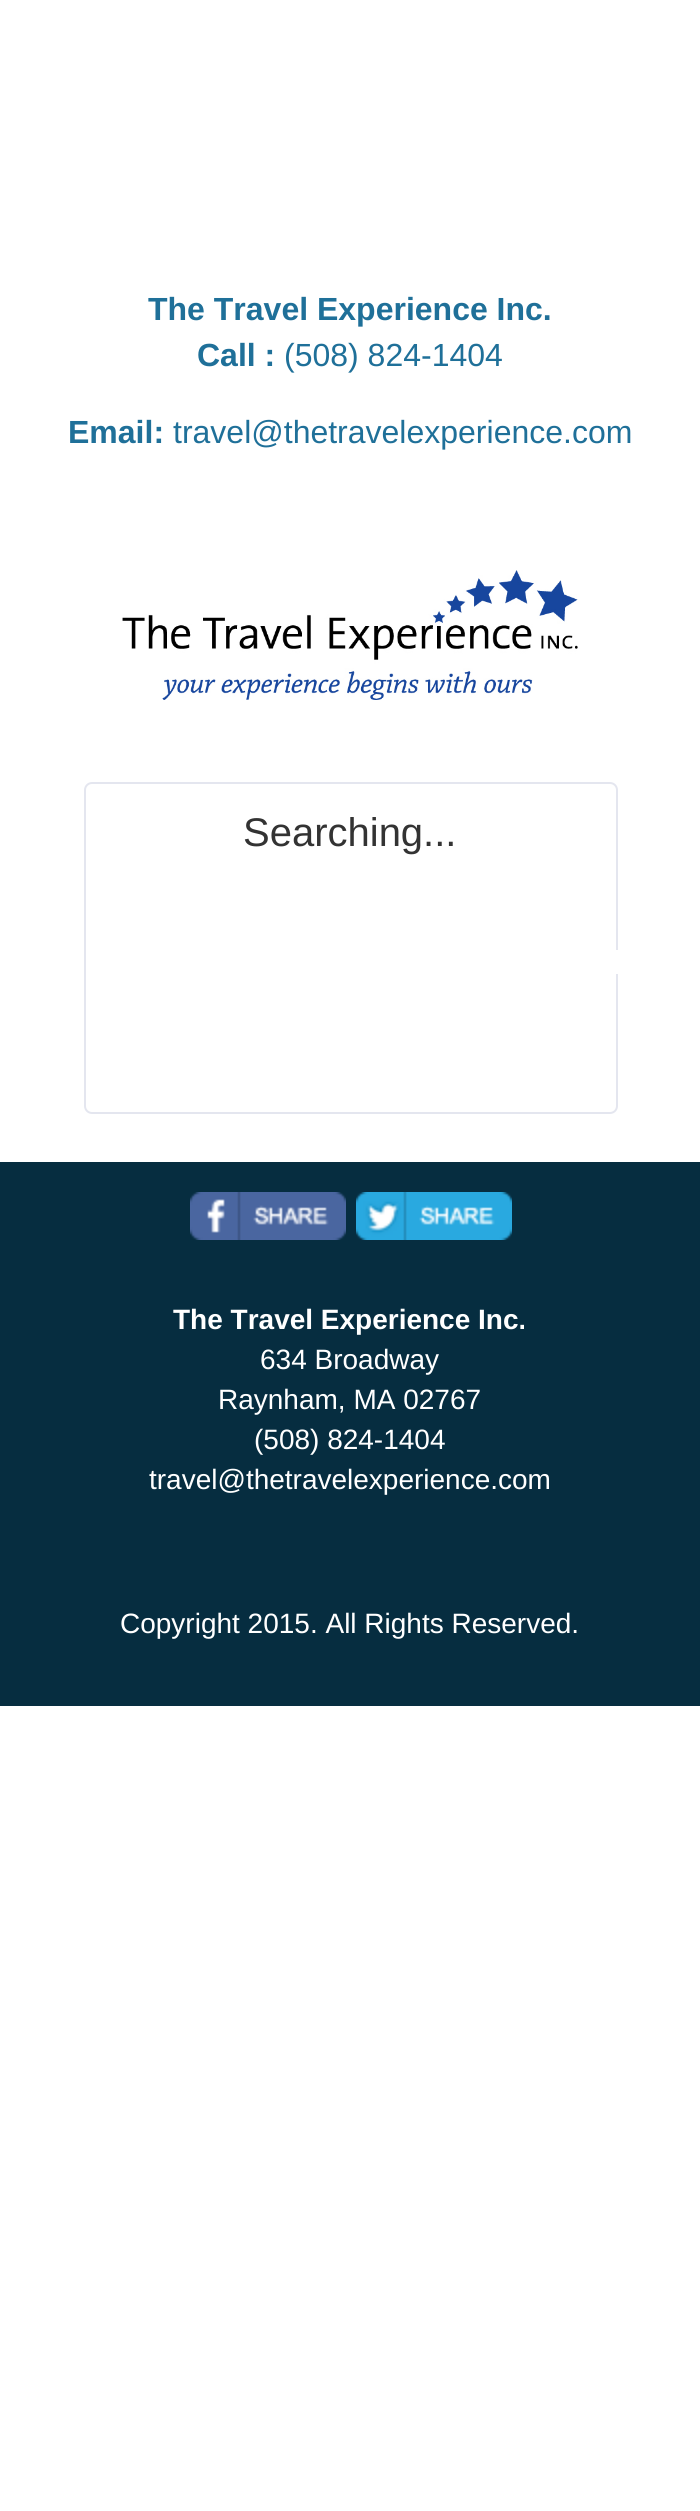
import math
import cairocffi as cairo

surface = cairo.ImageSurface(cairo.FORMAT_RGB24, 700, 2511)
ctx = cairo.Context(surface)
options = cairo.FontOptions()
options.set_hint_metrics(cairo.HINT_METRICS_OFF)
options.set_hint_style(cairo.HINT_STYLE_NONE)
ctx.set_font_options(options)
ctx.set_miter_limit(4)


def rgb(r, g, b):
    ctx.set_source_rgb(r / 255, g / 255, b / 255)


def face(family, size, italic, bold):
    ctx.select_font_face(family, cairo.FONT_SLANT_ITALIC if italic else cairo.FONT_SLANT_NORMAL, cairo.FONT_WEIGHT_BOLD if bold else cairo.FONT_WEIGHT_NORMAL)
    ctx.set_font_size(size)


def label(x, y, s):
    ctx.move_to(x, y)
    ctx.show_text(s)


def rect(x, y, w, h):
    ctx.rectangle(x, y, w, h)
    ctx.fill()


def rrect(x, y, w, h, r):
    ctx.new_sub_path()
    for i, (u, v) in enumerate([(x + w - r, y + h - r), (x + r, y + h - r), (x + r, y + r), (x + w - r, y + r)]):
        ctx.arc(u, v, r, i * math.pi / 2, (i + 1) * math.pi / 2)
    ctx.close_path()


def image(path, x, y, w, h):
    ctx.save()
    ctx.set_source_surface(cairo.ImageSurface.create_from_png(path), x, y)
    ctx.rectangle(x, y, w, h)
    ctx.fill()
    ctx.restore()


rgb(255, 255, 255)
ctx.paint()
face('Liberation Sans', 32, 0, 1)
rgb(31, 112, 153)
label(148, 320, 'The Travel Experience Inc.')
label(197, 366, 'Call :')
face('Liberation Sans', 32, 0, 0)
label(284, 366, '(508) 824-1404')
face('Liberation Sans', 32, 0, 1)
label(68, 443, 'Email:')
face('Liberation Sans', 32, 0, 0)
label(173, 443, 'travel@thetravelexperience.com')
image('image0.png', 122, 570, 456, 130)
rrect(85, 783, 532, 330, 7)
rgb(228, 230, 239)
ctx.stroke()
face('Liberation Sans', 40, 0, 0)
rgb(51, 51, 51)
label(243, 846, 'Searching...')
rgb(255, 255, 255)
rect(616, 950, 2, 24)
rgb(6, 45, 64)
rect(0, 1162, 700, 544)
image('image1.png', 190, 1192, 156, 48)
image('image2.png', 356, 1192, 156, 48)
face('Liberation Sans', 28, 0, 1)
rgb(255, 255, 255)
label(173, 1329, 'The Travel Experience Inc.')
face('Liberation Sans', 28, 0, 0)
label(260, 1369, '634 Broadway')
label(218, 1409, 'Raynham, MA 02767')
label(254, 1449, '(508) 824-1404')
label(149, 1489, 'travel@thetravelexperience.com')
label(120, 1633, 'Copyright 2015. All Rights Reserved.')
surface.write_to_png('render.png')
